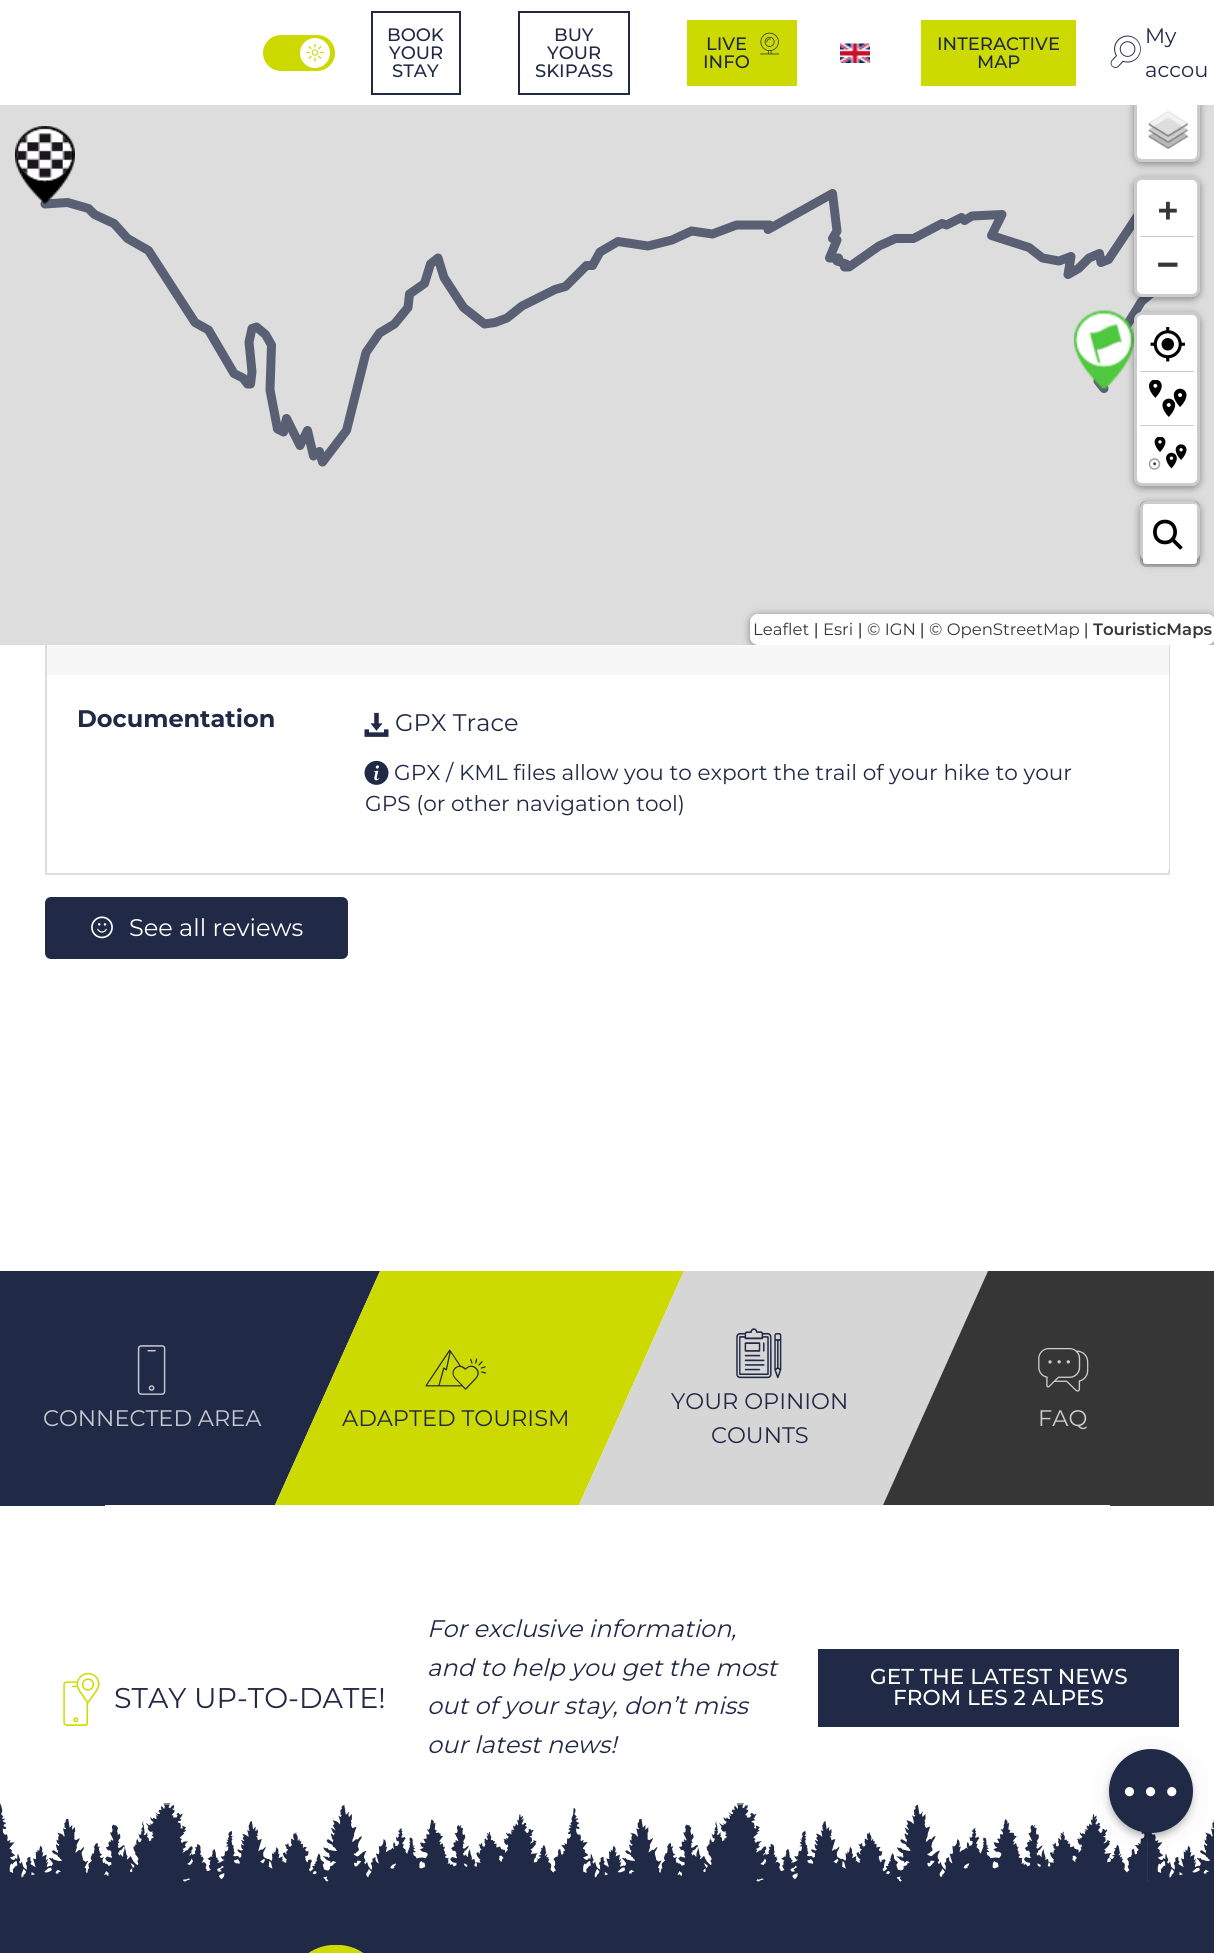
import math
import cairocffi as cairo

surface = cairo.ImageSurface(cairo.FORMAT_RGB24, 1214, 1953)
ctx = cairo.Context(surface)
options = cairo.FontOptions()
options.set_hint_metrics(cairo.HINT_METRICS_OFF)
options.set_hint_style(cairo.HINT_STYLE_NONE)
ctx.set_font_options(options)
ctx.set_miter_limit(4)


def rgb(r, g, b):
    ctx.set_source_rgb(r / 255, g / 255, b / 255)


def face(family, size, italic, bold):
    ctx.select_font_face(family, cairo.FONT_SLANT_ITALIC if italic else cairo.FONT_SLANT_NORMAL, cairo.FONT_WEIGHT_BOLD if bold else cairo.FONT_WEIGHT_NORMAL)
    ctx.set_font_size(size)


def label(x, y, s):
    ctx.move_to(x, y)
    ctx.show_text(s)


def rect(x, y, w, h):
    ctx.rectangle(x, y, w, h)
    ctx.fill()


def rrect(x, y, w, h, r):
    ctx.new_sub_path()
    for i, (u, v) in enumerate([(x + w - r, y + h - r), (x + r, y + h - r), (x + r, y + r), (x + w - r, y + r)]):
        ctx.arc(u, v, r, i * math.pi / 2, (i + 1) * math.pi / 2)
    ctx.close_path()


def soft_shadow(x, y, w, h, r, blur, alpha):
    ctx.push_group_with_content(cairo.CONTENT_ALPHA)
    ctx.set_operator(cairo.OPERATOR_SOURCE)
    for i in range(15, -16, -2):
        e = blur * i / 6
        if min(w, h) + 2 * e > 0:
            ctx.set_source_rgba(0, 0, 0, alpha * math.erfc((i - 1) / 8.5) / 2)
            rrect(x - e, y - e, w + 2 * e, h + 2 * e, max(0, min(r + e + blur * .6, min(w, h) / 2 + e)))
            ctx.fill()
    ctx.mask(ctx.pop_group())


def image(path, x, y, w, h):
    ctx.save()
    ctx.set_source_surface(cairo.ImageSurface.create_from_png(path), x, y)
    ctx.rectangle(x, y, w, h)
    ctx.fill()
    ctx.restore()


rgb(255, 255, 255)
ctx.paint()
ctx.rectangle(46, 550, 1123, 324)
rgb(221, 221, 221)
ctx.stroke()
rect(0, 105, 1214, 540)
rgb(0, 0, 0)
soft_shadow(1134, 98, 66, 66, 8, 4, 0.4)
rgb(255, 255, 255)
rrect(1134, 96, 66, 66, 8)
ctx.fill()
rrect(1135.5, 97.5, 63, 63, 6.5)
ctx.set_source_rgba(0, 0, 0, 0.2)
ctx.set_line_width(3)
ctx.stroke()
rgb(255, 255, 255)
rect(1127, 90, 80, 15)
rgb(205, 218, 1)
rrect(263, 35, 72, 36, 18)
ctx.fill()
rgb(255, 255, 255)
ctx.arc(315, 53, 15, 0, 2 * math.pi)
ctx.fill()
image('image0.png', 306, 43, 18, 19)
ctx.rectangle(372, 12, 88, 82)
rgb(32, 41, 69)
ctx.set_line_width(2)
ctx.stroke()
face('Montserrat Medium', 18, 0, 0)
label(387, 41, 'BOOK')
label(389, 59, 'YOUR')
label(392, 77, 'STAY')
ctx.rectangle(519, 12, 110, 82)
ctx.stroke()
label(554, 41, 'BUY')
label(547, 59, 'YOUR')
label(535, 77, 'SKIPASS')
rgb(205, 218, 1)
rect(687, 20, 110, 66)
rgb(32, 41, 69)
label(706, 50, 'LIVE')
label(703, 68, 'INFO')
image('image1.png', 760, 32, 20, 23)
image('image2.png', 840, 43, 30, 20)
rgb(205, 218, 1)
rect(921, 20, 155, 66)
rgb(32, 41, 69)
label(937, 50, 'INTERACTIVE')
label(977, 68, 'MAP')
image('image3.png', 1110, 35, 31, 33)
face('Montserrat', 21, 0, 0)
label(1145, 43, 'My')
label(1145, 77, 'accou')
image('image6.png', 40, 189, 1114, 278)
image('image4.png', 15, 126, 60, 78)
image('image5.png', 1074, 310, 60, 79)
image('image7.png', 1148, 111, 40, 38)
rgb(0, 0, 0)
soft_shadow(1134, 179, 66, 120, 8, 4, 0.4)
rgb(255, 255, 255)
rrect(1134, 177, 66, 120, 8)
ctx.fill()
rrect(1135.5, 178.5, 63, 117, 6.5)
ctx.set_source_rgba(0, 0, 0, 0.2)
ctx.set_line_width(3)
ctx.stroke()
rgb(204, 204, 204)
rect(1140, 236, 54, 1)
face('DejaVu Sans Mono', 33, 0, 1)
rgb(54, 54, 54)
label(1158, 221, '+')
face('DejaVu Sans Mono', 36, 0, 1)
label(1157, 276, '−')
rgb(0, 0, 0)
soft_shadow(1134, 314, 66, 174, 8, 4, 0.4)
rgb(255, 255, 255)
rrect(1134, 312, 66, 174, 8)
ctx.fill()
rrect(1135.5, 313.5, 63, 171, 6.5)
ctx.set_source_rgba(0, 0, 0, 0.2)
ctx.stroke()
image('image8.png', 1150, 327, 35, 35)
rgb(204, 204, 204)
rect(1140, 371, 54, 1)
image('image9.png', 1149, 380, 38, 37)
rect(1140, 425, 54, 1)
image('image10.png', 1149, 437, 38, 33)
rgb(0, 0, 0)
soft_shadow(1140, 503, 60, 60, 8, 4, 0.4)
rgb(255, 255, 255)
rrect(1140, 501, 60, 60, 8)
ctx.fill()
rrect(1143, 504, 54, 60, 3)
ctx.fill()
ctx.new_path()
ctx.move_to(1165, 542.5)
ctx.curve_to(1151.5, 542.5, 1151.5, 521.5, 1165, 521.5)
ctx.curve_to(1178.5, 521.5, 1178.5, 542.5, 1165, 542.5)
ctx.close_path()
ctx.move_to(1173.5, 540.5)
ctx.line_to(1181.5, 548.5)
ctx.close_path()
rgb(0, 0, 0)
ctx.set_line_width(3.7)
ctx.stroke()
rrect(1141.5, 502.5, 57, 63, 4.5)
ctx.set_source_rgba(0, 0, 0, 0.2)
ctx.set_line_width(3)
ctx.stroke()
rgb(247, 247, 247)
rect(47, 645, 1122, 30)
ctx.save()
ctx.rectangle(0, 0, 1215, 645)
ctx.clip()
rgb(0, 0, 0)
soft_shadow(750, 615, 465, 32, 8, 4, 0.4)
ctx.restore()
rgb(255, 255, 255)
rrect(750, 614, 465, 31, 8)
ctx.fill()
face('Montserrat', 16.5, 0, 0)
rgb(54, 54, 54)
label(753, 635, 'Leaflet')
face('Liberation Sans', 16.5, 0, 0)
label(814, 635, '|')
face('Montserrat', 16.5, 0, 0)
label(823, 635, 'Esri')
face('Liberation Sans', 16.5, 0, 0)
label(858, 635, '|')
face('Montserrat', 16.5, 0, 0)
label(867, 635, '© IGN')
face('Liberation Sans', 16.5, 0, 0)
label(920, 635, '|')
face('Montserrat', 16.5, 0, 0)
label(929, 635, '© OpenStreetMap')
face('Liberation Sans', 16.5, 0, 0)
label(1084, 635, '|')
face('Montserrat SemiBold', 16.5, 0, 0)
label(1093, 635, 'TouristicMaps')
rgb(255, 255, 255)
ctx.new_path()
ctx.move_to(47, 675)
ctx.line_to(1169, 675)
ctx.line_to(1169, 868)
ctx.curve_to(1169, 871, 1167, 873, 1164, 873)
ctx.line_to(52, 873)
ctx.curve_to(49, 873, 47, 871, 47, 868)
ctx.close_path()
ctx.fill()
face('Montserrat', 24, 0, 1)
rgb(32, 41, 69)
label(77, 727, 'Documentation')
image('image11.png', 364, 712, 25, 25)
face('Montserrat', 24, 0, 0)
label(395, 731, 'GPX Trace')
image('image12.png', 364, 760, 25, 25)
face('Montserrat', 21.6, 0, 0)
label(394, 780, 'GPX / KML files allow you to export the trail of your hike to your')
label(365, 811, 'GPS (or other navigation tool)')
rrect(45, 897, 303, 62, 6)
ctx.fill()
image('image13.png', 91, 916, 22, 23)
face('Montserrat', 24, 0, 0)
rgb(255, 255, 255)
label(129, 936, 'See all reviews')
rgb(32, 41, 69)
rect(0, 1805, 1214, 148)
rgb(135, 135, 135)
rect(0, 1803, 918, 2)
image('image20.png', 0, 1803, 1214, 79)
rgb(0, 0, 0)
soft_shadow(1110, 1755, 81, 81, 40.5, 4, 0.3)
rgb(32, 41, 69)
rect(818, 1649, 361, 78)
rgb(0, 0, 0)
soft_shadow(1109, 1751, 84, 84, 42, 13.5, 0.06)
rgb(32, 41, 69)
ctx.arc(1151, 1791, 41, 0, 2 * math.pi)
ctx.fill_preserve()
ctx.set_line_width(2)
ctx.stroke()
image('image14.png', 1124, 1787, 53, 10)
ctx.new_path()
ctx.move_to(76, 1271)
ctx.line_to(380, 1271)
ctx.line_to(275, 1505)
ctx.line_to(-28, 1505)
ctx.close_path()
ctx.fill()
rect(0, 1271, 105, 235)
image('image15.png', 137, 1345, 29, 50)
face('Montserrat', 22.5, 0, 0)
rgb(199, 202, 209)
label(43, 1426, 'CONNECTED AREA')
rgb(205, 218, 1)
ctx.new_path()
ctx.move_to(380, 1271)
ctx.line_to(684, 1271)
ctx.line_to(579, 1505)
ctx.line_to(275, 1505)
ctx.close_path()
ctx.fill()
image('image16.png', 425, 1349, 61, 41)
rgb(32, 41, 69)
label(342, 1426, 'ADAPTED TOURISM')
rgb(214, 214, 214)
ctx.new_path()
ctx.move_to(684, 1271)
ctx.line_to(988, 1271)
ctx.line_to(883, 1505)
ctx.line_to(579, 1505)
ctx.close_path()
ctx.fill()
image('image17.png', 736, 1328, 46, 51)
rgb(32, 41, 69)
label(671, 1409, 'YOUR OPINION')
label(711, 1443, 'COUNTS')
rgb(54, 54, 54)
ctx.new_path()
ctx.move_to(988, 1271)
ctx.line_to(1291, 1271)
ctx.line_to(1187, 1505)
ctx.line_to(883, 1505)
ctx.close_path()
ctx.fill()
image('image18.png', 1038, 1348, 51, 44)
rgb(205, 205, 205)
label(1038, 1426, 'FAQ')
rgb(54, 54, 54)
rect(1110, 1444, 104, 62)
image('image19.png', 63, 1672, 37, 54)
face('Montserrat', 28.5, 0, 0)
rgb(32, 41, 69)
label(114, 1708, 'STAY UP-TO-DATE!')
face('Montserrat', 24, 1, 0)
label(427, 1637, 'For exclusive information,')
label(427, 1676, 'and to help you get the most')
label(427, 1714, 'out of your stay, don’t miss')
label(427, 1753, 'our latest news!')
face('Montserrat Medium', 21.6, 0, 0)
rgb(255, 255, 255)
label(870, 1684, 'GET THE LATEST NEWS')
label(893, 1705, 'FROM LES 2 ALPES')
image('image21.png', 308, 1944, 55, 9)
surface.write_to_png('render.png')
